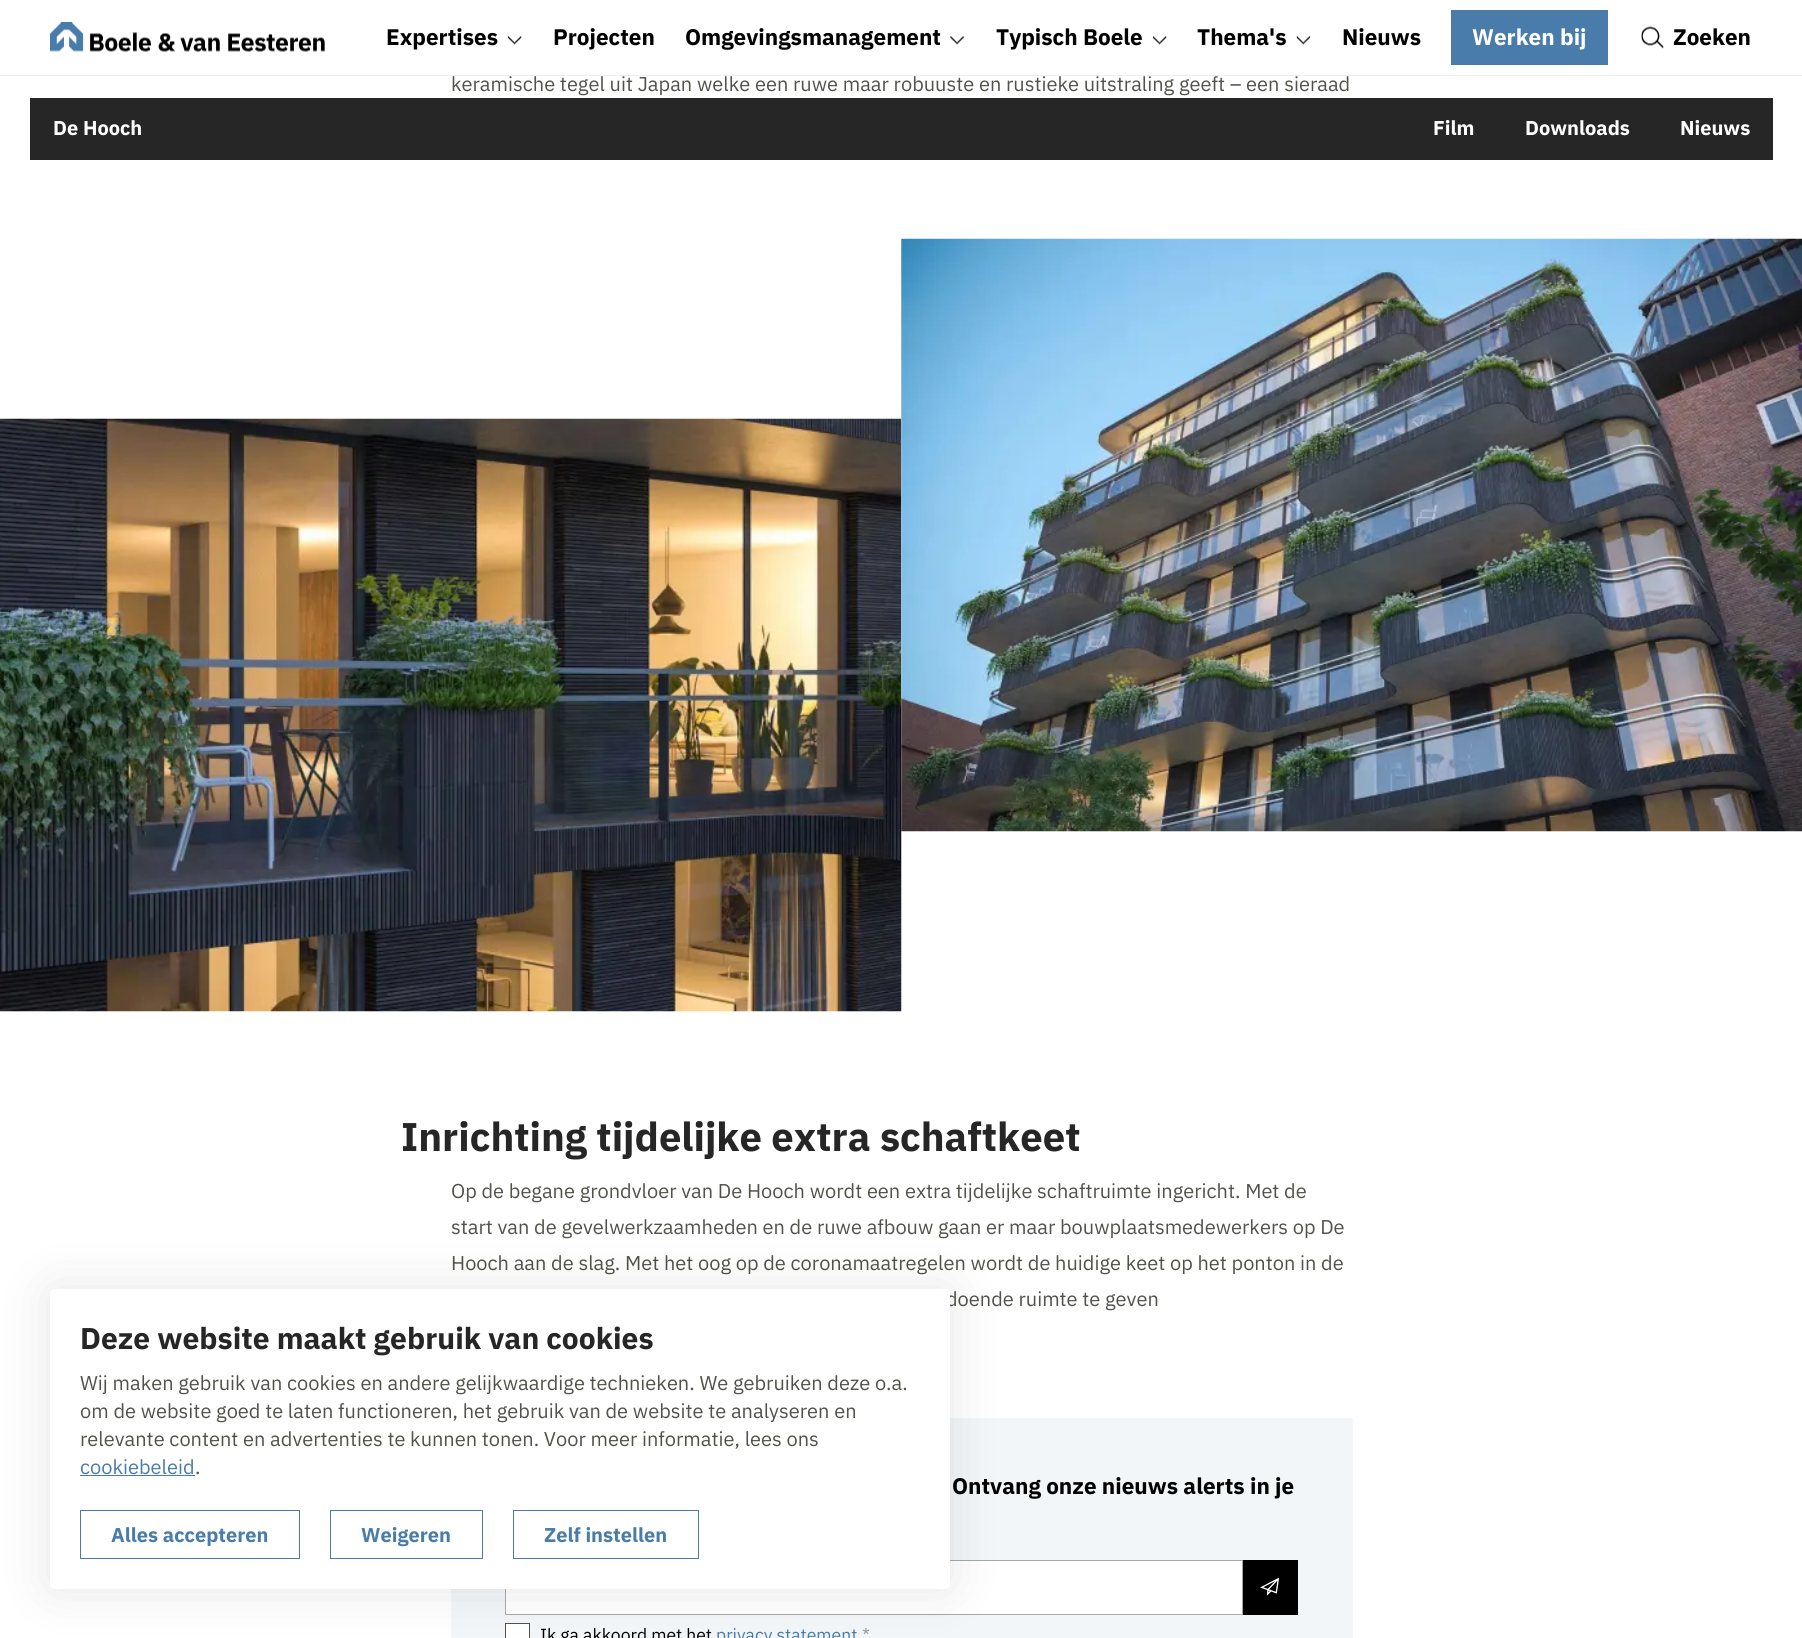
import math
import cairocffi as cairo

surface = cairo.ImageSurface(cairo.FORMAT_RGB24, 1802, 1638)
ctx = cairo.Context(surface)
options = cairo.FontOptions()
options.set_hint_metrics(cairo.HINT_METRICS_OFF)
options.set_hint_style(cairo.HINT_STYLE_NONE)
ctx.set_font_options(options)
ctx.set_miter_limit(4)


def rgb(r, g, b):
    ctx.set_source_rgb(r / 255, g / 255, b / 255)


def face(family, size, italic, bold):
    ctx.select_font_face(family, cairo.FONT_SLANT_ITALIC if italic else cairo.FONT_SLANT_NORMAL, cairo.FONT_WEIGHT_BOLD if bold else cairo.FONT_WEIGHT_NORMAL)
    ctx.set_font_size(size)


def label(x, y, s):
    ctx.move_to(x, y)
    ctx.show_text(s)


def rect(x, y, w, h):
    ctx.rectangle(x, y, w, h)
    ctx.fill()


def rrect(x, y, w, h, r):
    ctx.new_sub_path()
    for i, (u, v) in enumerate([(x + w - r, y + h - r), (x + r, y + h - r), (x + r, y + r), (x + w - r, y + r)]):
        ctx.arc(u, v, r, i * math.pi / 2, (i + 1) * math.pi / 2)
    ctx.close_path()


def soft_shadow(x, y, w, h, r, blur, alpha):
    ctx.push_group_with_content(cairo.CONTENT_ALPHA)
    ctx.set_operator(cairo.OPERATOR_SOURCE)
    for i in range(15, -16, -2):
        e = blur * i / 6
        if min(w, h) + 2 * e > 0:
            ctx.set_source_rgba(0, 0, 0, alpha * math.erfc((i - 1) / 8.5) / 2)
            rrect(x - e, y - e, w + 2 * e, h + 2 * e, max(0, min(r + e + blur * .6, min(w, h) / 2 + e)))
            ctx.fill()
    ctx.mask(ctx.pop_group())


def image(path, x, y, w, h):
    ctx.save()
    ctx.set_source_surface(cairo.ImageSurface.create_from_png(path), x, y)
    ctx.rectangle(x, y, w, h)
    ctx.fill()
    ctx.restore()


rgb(255, 255, 255)
ctx.paint()
rgb(239, 239, 239)
rect(0, 75, 1802, 1)
image('image0.png', 50, 22, 275, 30)
face('IBM Plex Sans', 22.5, 0, 1)
rgb(0, 0, 0)
label(386, 45, 'Expertises')
image('image1.png', 507, 36, 15, 9)
label(553, 45, 'Projecten')
label(685, 45, 'Omgevingsmanagement')
image('image2.png', 950, 36, 14, 9)
label(996, 45, 'Typisch Boele')
image('image1.png', 1152, 36, 15, 9)
label(1197, 45, 'Thema\'s')
image('image3.png', 1296, 36, 15, 9)
label(1342, 45, 'Nieuws')
rgb(73, 124, 171)
rect(1451, 10, 157, 55)
rgb(255, 255, 255)
label(1472, 45, 'Werken bij')
image('image4.png', 1641, 26, 23, 23)
rgb(0, 0, 0)
label(1673, 45, 'Zoeken')
face('IBM Plex Sans', 20, 0, 0)
rgb(81, 83, 74)
label(451, 91, 'keramische tegel uit Japan welke een ruwe maar robuuste en rustieke uitstraling geeft – een sieraad')
image('image5.png', 0, 418, 902, 594)
image('image6.png', 901, 238, 901, 594)
face('IBM Plex Sans', 40, 0, 1)
rgb(38, 38, 38)
label(401, 1151, 'Inrichting tijdelijke extra schaftkeet')
face('IBM Plex Sans', 20, 0, 0)
rgb(81, 83, 74)
label(451, 1198, 'Op de begane grondvloer van De Hooch wordt een extra tijdelijke schaftruimte ingericht. Met de')
label(451, 1234, 'start van de gevelwerkzaamheden en de ruwe afbouw gaan er maar bouwplaatsmedewerkers op De')
label(451, 1270, 'Hooch aan de slag. Met het oog op de coronamaatregelen wordt de huidige keet op het ponton in de')
label(946, 1306, 'doende ruimte te geven')
rgb(38, 38, 38)
rect(30, 98, 1743, 62)
face('IBM Plex Sans', 20, 0, 1)
rgb(255, 255, 255)
label(53, 135, 'De Hooch')
label(1433, 135, 'Film')
label(1525, 135, 'Downloads')
label(1680, 135, 'Nieuws')
rgb(242, 246, 249)
rect(451, 1418, 902, 220)
face('IBM Plex Sans', 22.5, 0, 1)
rgb(0, 0, 0)
label(952, 1494, 'Ontvang onze nieuws alerts in je')
rgb(255, 255, 255)
ctx.rectangle(505.5, 1560.5, 737, 54)
ctx.fill_preserve()
rgb(168, 169, 164)
ctx.set_line_width(1)
ctx.stroke()
rgb(0, 0, 0)
rect(1243, 1560, 55, 55)
image('image7.png', 1260, 1578, 20, 18)
rgb(255, 255, 255)
ctx.rectangle(505.5, 1623.5, 24, 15)
ctx.fill_preserve()
rgb(81, 83, 74)
ctx.stroke()
face('IBM Plex Sans', 17.5, 0, 0)
rgb(0, 0, 0)
label(540, 1641, 'Ik ga akkoord met het')
rgb(73, 124, 171)
label(716, 1641, 'privacy statement')
rgb(153, 153, 153)
label(862, 1641, '*')
rgb(0, 0, 0)
soft_shadow(50, 1289, 900, 300, 5, 25, 0.1)
rgb(255, 255, 255)
rrect(50, 1289, 900, 300, 5)
ctx.fill()
face('IBM Plex Sans', 30, 0, 1)
rgb(38, 38, 38)
label(80, 1349, 'Deze website maakt gebruik van cookies')
face('IBM Plex Sans', 20, 0, 0)
rgb(81, 83, 74)
label(80, 1390, 'Wij maken gebruik van cookies en andere gelijkwaardige technieken. We gebruiken deze o.a.')
label(80, 1418, 'om de website goed te laten functioneren, het gebruik van de website te analyseren en')
label(80, 1446, 'relevante content en advertenties te kunnen tonen. Voor meer informatie, lees ons')
rgb(73, 124, 171)
label(80, 1474, 'cookiebeleid')
rect(80, 1475, 115, 1)
rgb(81, 83, 74)
label(195, 1474, '.')
ctx.rectangle(80.5, 1510.5, 219, 48)
rgb(73, 124, 171)
ctx.stroke()
face('IBM Plex Sans', 20, 0, 1)
label(111, 1542, 'Alles accepteren')
ctx.rectangle(330.5, 1510.5, 152, 48)
ctx.stroke()
label(361, 1542, 'Weigeren')
ctx.rectangle(513.5, 1510.5, 185, 48)
ctx.stroke()
label(544, 1542, 'Zelf instellen')
surface.write_to_png('render.png')
